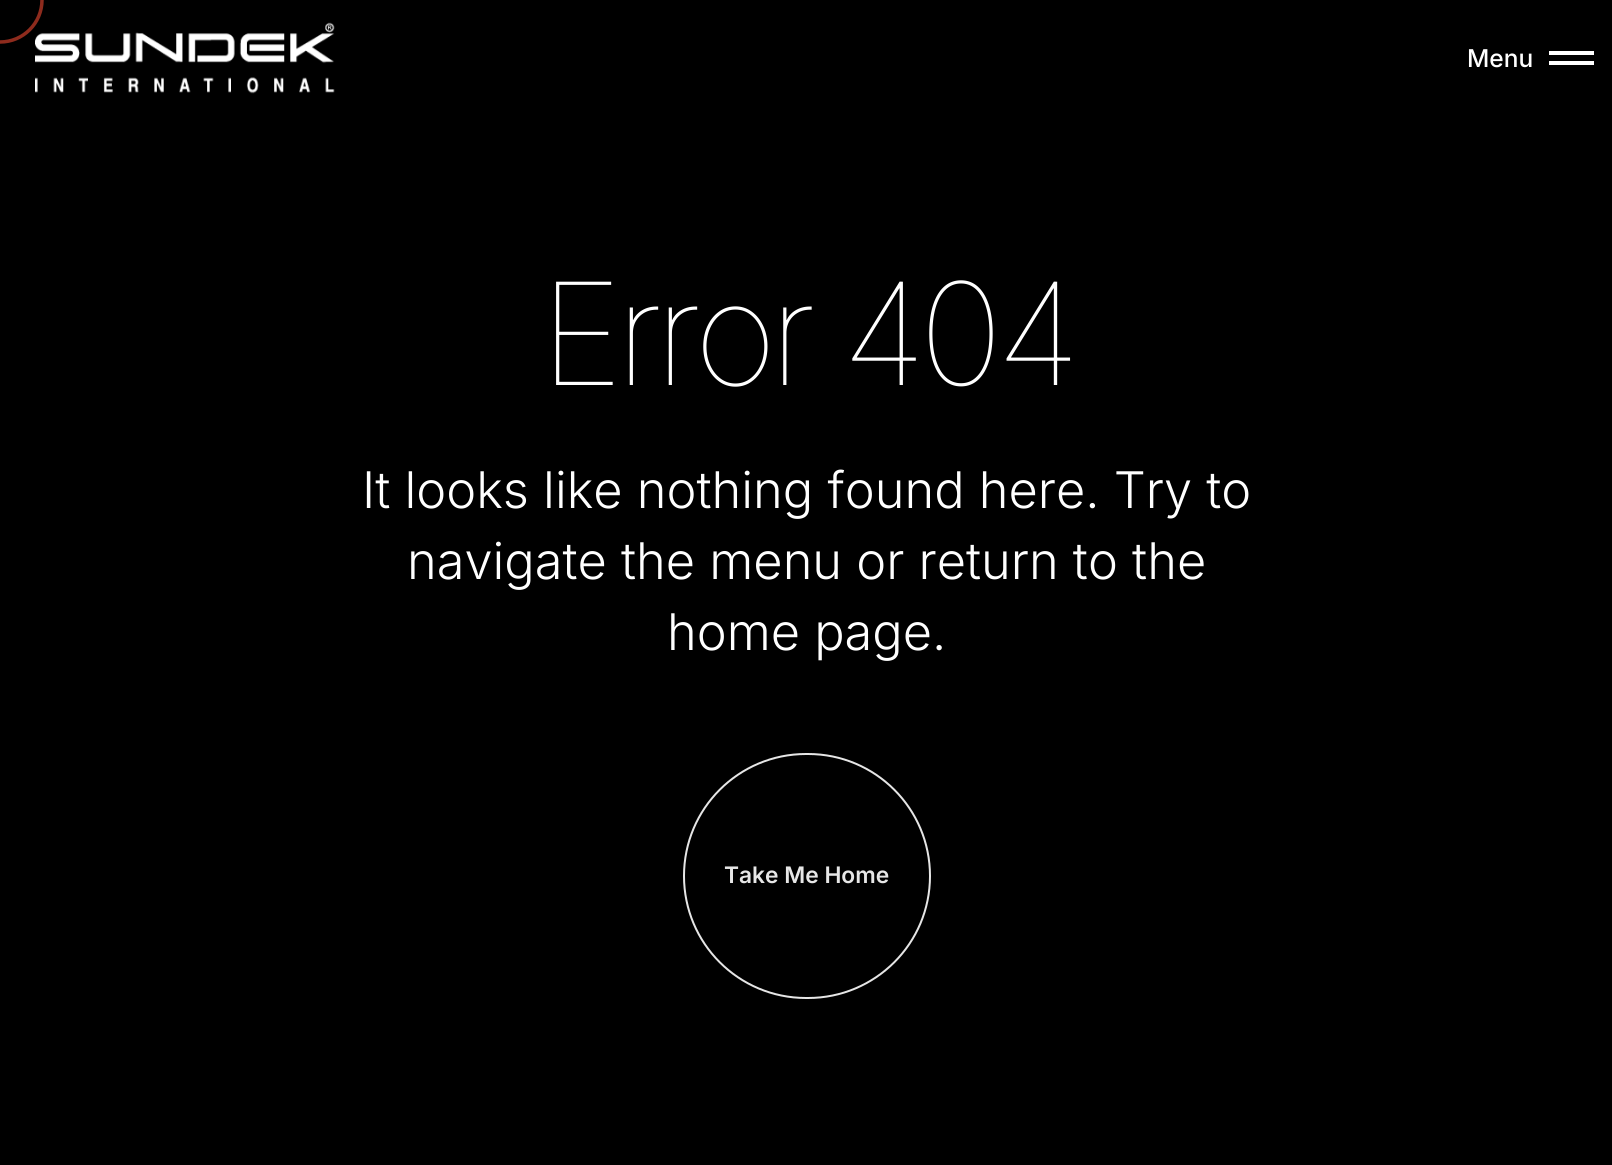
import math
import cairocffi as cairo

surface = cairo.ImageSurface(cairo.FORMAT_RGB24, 1612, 1165)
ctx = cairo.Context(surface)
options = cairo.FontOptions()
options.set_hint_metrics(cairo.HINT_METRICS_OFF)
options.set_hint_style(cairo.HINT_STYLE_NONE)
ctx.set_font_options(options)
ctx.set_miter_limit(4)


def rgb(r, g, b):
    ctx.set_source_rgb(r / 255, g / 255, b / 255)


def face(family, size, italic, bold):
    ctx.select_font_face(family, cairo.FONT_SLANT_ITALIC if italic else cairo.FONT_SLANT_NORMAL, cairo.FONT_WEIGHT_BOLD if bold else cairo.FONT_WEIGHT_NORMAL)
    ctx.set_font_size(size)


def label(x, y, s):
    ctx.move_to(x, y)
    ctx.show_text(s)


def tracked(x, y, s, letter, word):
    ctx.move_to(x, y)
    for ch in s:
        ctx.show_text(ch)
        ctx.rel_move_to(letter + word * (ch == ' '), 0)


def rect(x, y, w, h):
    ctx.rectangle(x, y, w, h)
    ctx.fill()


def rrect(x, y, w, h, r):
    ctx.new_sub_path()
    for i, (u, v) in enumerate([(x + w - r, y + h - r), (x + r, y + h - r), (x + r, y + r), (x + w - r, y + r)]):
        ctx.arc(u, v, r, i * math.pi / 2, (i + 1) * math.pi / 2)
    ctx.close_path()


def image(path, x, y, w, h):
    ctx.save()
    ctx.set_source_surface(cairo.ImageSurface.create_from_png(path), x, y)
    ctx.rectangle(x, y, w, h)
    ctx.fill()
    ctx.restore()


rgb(0, 0, 0)
ctx.paint()
image('image0.png', 35, 22, 300, 72)
ctx.arc(0, 0, 42, 0, 2 * math.pi)
rgb(142, 43, 29)
ctx.set_line_width(3.5)
ctx.stroke()
face('Inter Medium', 24.5, 0, 0)
rgb(255, 255, 255)
label(1467, 67, 'Menu')
rect(1549, 51, 45, 4)
rect(1549, 61, 45, 4)
face('Inter Thin', 142, 0, 0)
tracked(540, 385, 'Error 404', -7, 0)
face('Inter Light', 50.5, 0, 0)
label(362, 508, 'It looks like nothing found here. Try to')
label(407, 579, 'navigate the menu or return to the')
label(667, 650, 'home page.')
rrect(684, 754, 246, 244, 122)
rgb(230, 230, 230)
ctx.set_line_width(2)
ctx.stroke()
face('Inter SemiBold', 22.75, 0, 0)
label(724, 883, 'Take Me Home')
surface.write_to_png('render.png')
